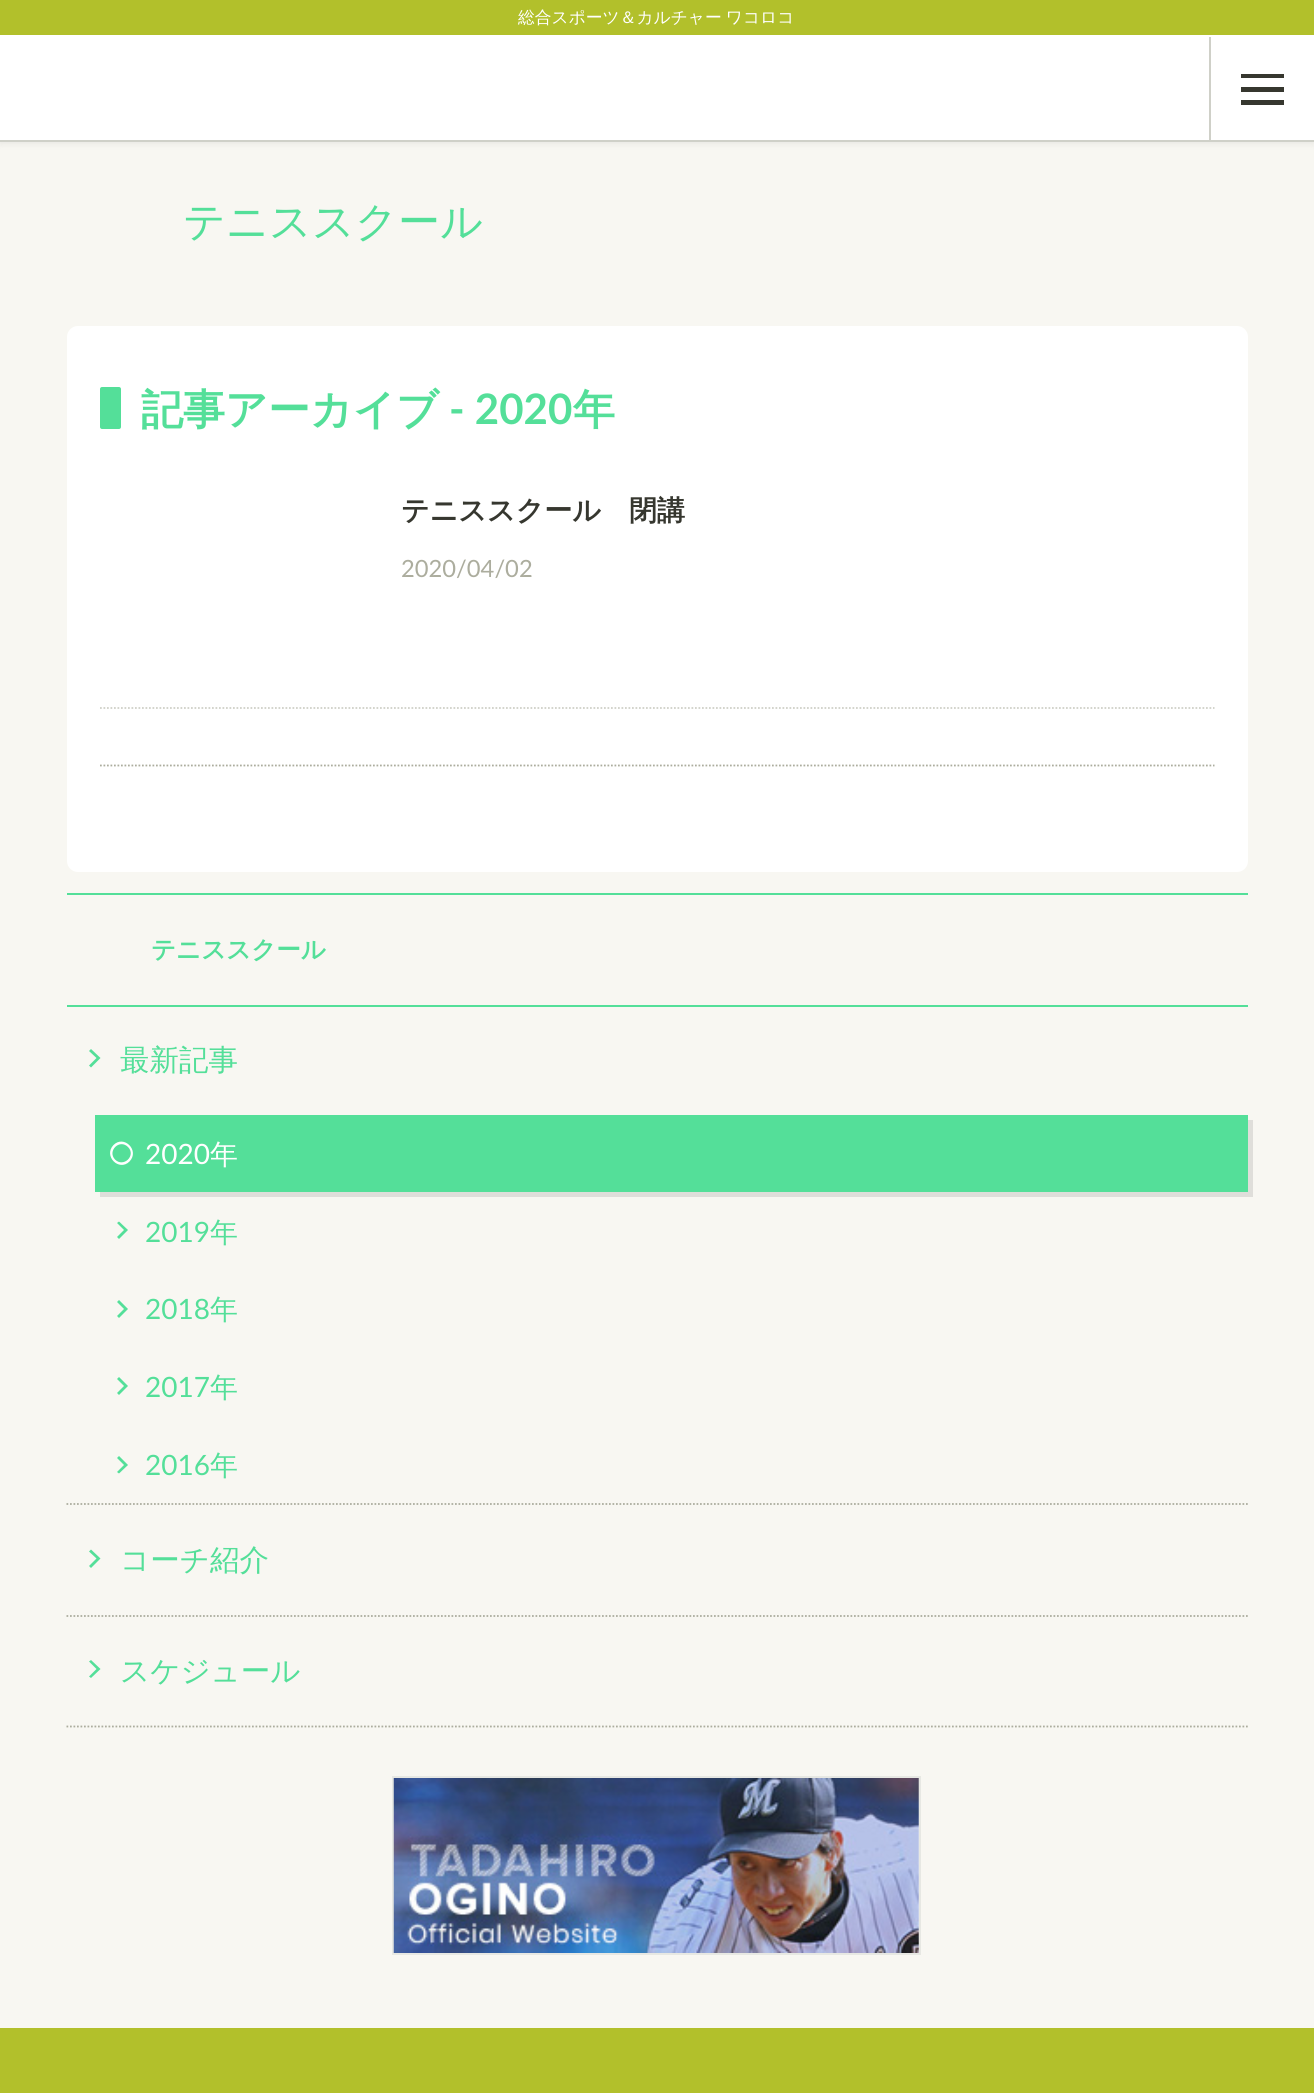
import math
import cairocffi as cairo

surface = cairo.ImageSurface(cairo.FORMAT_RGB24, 1314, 2093)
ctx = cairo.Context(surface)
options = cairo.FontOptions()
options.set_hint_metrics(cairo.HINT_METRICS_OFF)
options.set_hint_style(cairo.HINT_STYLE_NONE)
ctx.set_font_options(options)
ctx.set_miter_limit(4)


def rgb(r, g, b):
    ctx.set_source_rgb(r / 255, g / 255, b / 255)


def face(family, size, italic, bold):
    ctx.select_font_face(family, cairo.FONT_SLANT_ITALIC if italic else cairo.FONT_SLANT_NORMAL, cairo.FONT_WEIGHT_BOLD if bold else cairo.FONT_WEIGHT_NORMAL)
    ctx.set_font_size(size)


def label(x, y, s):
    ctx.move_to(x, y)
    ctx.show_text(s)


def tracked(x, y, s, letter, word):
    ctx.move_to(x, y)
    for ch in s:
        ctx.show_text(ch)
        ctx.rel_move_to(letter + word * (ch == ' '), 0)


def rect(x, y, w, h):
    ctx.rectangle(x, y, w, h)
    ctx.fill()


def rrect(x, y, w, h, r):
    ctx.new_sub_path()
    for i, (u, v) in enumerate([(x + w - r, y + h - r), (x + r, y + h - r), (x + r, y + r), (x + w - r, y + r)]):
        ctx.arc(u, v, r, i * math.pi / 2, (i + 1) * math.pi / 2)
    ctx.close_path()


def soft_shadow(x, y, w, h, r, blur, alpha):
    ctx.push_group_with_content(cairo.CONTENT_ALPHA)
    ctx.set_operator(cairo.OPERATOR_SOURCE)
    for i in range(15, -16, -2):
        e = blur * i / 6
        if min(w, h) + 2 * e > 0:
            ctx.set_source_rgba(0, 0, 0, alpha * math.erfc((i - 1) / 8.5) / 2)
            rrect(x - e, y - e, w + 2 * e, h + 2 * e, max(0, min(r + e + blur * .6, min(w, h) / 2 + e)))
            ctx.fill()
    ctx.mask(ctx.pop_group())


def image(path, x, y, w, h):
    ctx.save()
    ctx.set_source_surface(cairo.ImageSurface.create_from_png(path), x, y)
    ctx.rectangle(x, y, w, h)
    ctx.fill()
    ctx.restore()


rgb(248, 247, 242)
ctx.paint()
rgb(0, 0, 0)
soft_shadow(0, 37, 1314, 105, 0, 4.5, 0.1)
rgb(255, 255, 255)
rect(0, 35, 1314, 105)
rgb(178, 192, 43)
rect(0, 0, 1314, 35)
face('WenQuanYi Zen Hei Medium', 16.75, 0, 0)
rgb(255, 255, 255)
tracked(518, 23, '総合スポーツ＆カルチャー ワコロコ', 0, -1)
rgb(207, 208, 200)
rect(0, 140, 1314, 2)
rect(1209, 37, 2, 105)
rgb(54, 55, 47)
ctx.new_path()
ctx.move_to(1241, 92)
ctx.line_to(1241, 87)
ctx.line_to(1284, 87)
ctx.line_to(1284, 92)
ctx.close_path()
ctx.move_to(1241, 78)
ctx.line_to(1241, 74)
ctx.line_to(1284, 74)
ctx.line_to(1284, 78)
ctx.close_path()
ctx.move_to(1241, 105)
ctx.line_to(1241, 100)
ctx.line_to(1284, 100)
ctx.line_to(1284, 105)
ctx.close_path()
ctx.fill()
face('WenQuanYi Zen Hei Medium', 42, 0, 0)
rgb(84, 223, 153)
label(183, 236, 'テニススクール')
rgb(255, 255, 255)
rrect(67, 326, 1181, 546, 11)
ctx.fill()
rgb(84, 223, 153)
rrect(100, 387, 21, 42, 2)
ctx.fill()
face('WenQuanYi Zen Hei', 42, 0, 1)
label(141, 424, '記事アーカイブ')
face('Lato', 42, 0, 1)
label(449, 424, '- 2020')
face('WenQuanYi Zen Hei', 42, 0, 1)
label(573, 424, '年')
ctx.new_path()
ctx.move_to(100, 708)
ctx.line_to(1214.5, 708)
rgb(207, 208, 200)
ctx.set_line_width(1.8)
ctx.set_dash([1.75, 1.75])
ctx.stroke()
face('WenQuanYi Zen Hei', 28, 0, 1)
rgb(54, 55, 47)
label(401, 520, 'テニススクール　閉講')
face('Lato', 23.75, 0, 0)
rgb(172, 173, 158)
label(401, 577, '2020/04/02')
ctx.new_path()
ctx.move_to(100, 765.5)
ctx.line_to(1214.5, 765.5)
ctx.stroke()
rgb(84, 223, 153)
rect(67, 893, 1181, 2)
rect(67, 1005, 1181, 2)
face('WenQuanYi Zen Hei', 24.5, 0, 1)
label(151, 958, 'テニススクール')
ctx.new_path()
ctx.move_to(66.5, 1504)
ctx.line_to(1248, 1504)
rgb(172, 173, 158)
ctx.stroke()
rgb(84, 223, 153)
ctx.new_path()
ctx.move_to(89, 1051)
ctx.line_to(91, 1049)
ctx.line_to(100.5, 1058)
ctx.line_to(91, 1067.5)
ctx.line_to(89, 1065.5)
ctx.line_to(96.5, 1058)
ctx.close_path()
ctx.fill()
face('WenQuanYi Zen Hei Medium', 29.5, 0, 0)
label(120, 1070, '最新記事')
rgb(223, 222, 218)
ctx.new_path()
ctx.move_to(100, 1192)
ctx.line_to(100, 1197)
ctx.line_to(1253, 1197)
ctx.line_to(1253, 1120)
ctx.line_to(1248, 1120)
ctx.line_to(1248, 1192)
ctx.close_path()
ctx.fill()
rgb(84, 223, 153)
rect(95, 1115, 1153, 77)
rgb(255, 255, 255)
ctx.new_path()
ctx.move_to(113.5, 1145)
ctx.curve_to(124, 1134.5, 140, 1150.5, 129.5, 1161.5)
ctx.curve_to(119, 1172, 103, 1156, 113.5, 1145)
ctx.close_path()
ctx.move_to(115, 1159.5)
ctx.curve_to(123.5, 1168, 136.5, 1155.5, 128, 1147)
ctx.curve_to(119.5, 1138.5, 107, 1151, 115, 1159.5)
ctx.close_path()
ctx.fill()
face('Lato', 28, 0, 0)
label(145, 1164, '2020')
face('WenQuanYi Zen Hei Medium', 28, 0, 0)
label(210, 1164, '年')
rgb(84, 223, 153)
ctx.new_path()
ctx.move_to(117, 1223)
ctx.line_to(119, 1221.5)
ctx.line_to(128, 1230)
ctx.line_to(119, 1239)
ctx.line_to(117, 1237)
ctx.line_to(124, 1230)
ctx.close_path()
ctx.fill()
face('Lato', 28, 0, 0)
label(145, 1242, '2019')
face('WenQuanYi Zen Hei Medium', 28, 0, 0)
label(210, 1242, '年')
ctx.new_path()
ctx.move_to(117, 1302)
ctx.line_to(119, 1300)
ctx.line_to(128, 1309)
ctx.line_to(119, 1318)
ctx.line_to(117, 1316)
ctx.line_to(124, 1309)
ctx.close_path()
ctx.fill()
face('Lato', 28, 0, 0)
label(145, 1319, '2018')
face('WenQuanYi Zen Hei Medium', 28, 0, 0)
label(210, 1319, '年')
ctx.new_path()
ctx.move_to(117, 1379)
ctx.line_to(119, 1377)
ctx.line_to(128, 1386)
ctx.line_to(119, 1395)
ctx.line_to(117, 1393)
ctx.line_to(124, 1386)
ctx.close_path()
ctx.fill()
face('Lato', 28, 0, 0)
label(145, 1397, '2017')
face('WenQuanYi Zen Hei Medium', 28, 0, 0)
label(210, 1397, '年')
ctx.new_path()
ctx.move_to(117, 1458)
ctx.line_to(119, 1456)
ctx.line_to(128, 1465)
ctx.line_to(119, 1473.5)
ctx.line_to(117, 1472)
ctx.line_to(124, 1465)
ctx.close_path()
ctx.fill()
face('Lato', 28, 0, 0)
label(145, 1475, '2016')
face('WenQuanYi Zen Hei Medium', 28, 0, 0)
label(210, 1475, '年')
ctx.new_path()
ctx.move_to(66.5, 1616)
ctx.line_to(1248, 1616)
rgb(172, 173, 158)
ctx.stroke()
rgb(84, 223, 153)
ctx.new_path()
ctx.move_to(89, 1551.5)
ctx.line_to(91, 1549.5)
ctx.line_to(100.5, 1558.5)
ctx.line_to(91, 1568)
ctx.line_to(89, 1566)
ctx.line_to(96.5, 1558.5)
ctx.close_path()
ctx.fill()
face('WenQuanYi Zen Hei Medium', 29.5, 0, 0)
label(120, 1570, 'コーチ紹介')
ctx.new_path()
ctx.move_to(66.5, 1726.5)
ctx.line_to(1248, 1726.5)
rgb(172, 173, 158)
ctx.stroke()
rgb(84, 223, 153)
ctx.new_path()
ctx.move_to(89, 1661.5)
ctx.line_to(91, 1660)
ctx.line_to(100.5, 1669)
ctx.line_to(91, 1678)
ctx.line_to(89, 1676.5)
ctx.line_to(96.5, 1669)
ctx.close_path()
ctx.fill()
label(120, 1681, 'スケジュール')
ctx.rectangle(393, 1777, 527, 177)
rgb(231, 232, 227)
ctx.set_line_width(2)
ctx.set_dash([])
ctx.stroke()
image('image0.png', 393, 1778, 526, 175)
rgb(178, 192, 43)
rect(0, 2028, 1314, 65)
surface.write_to_png('render.png')
